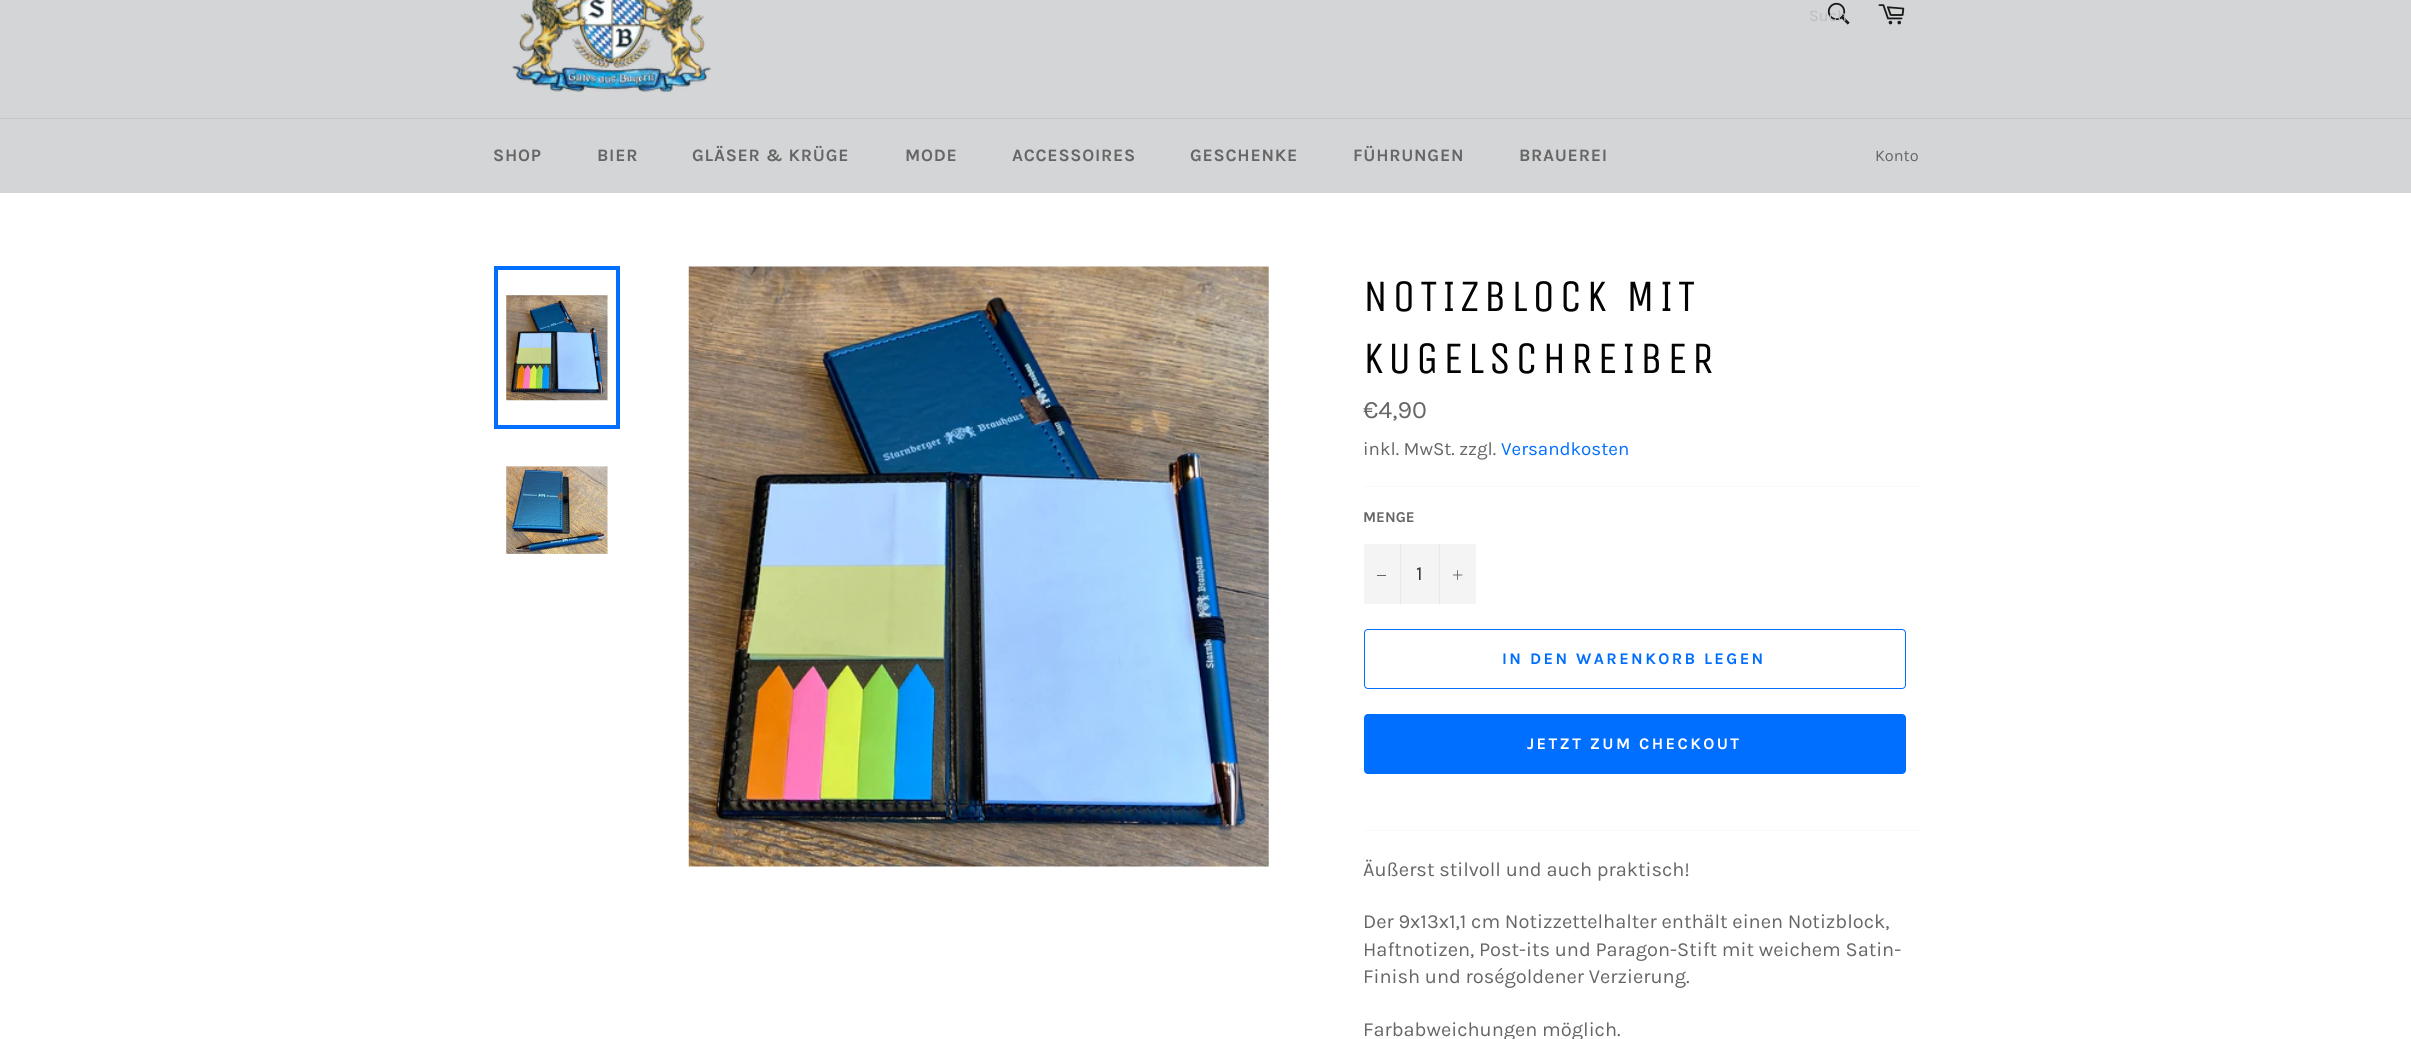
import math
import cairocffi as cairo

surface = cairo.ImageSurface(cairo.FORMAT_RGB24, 2411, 1039)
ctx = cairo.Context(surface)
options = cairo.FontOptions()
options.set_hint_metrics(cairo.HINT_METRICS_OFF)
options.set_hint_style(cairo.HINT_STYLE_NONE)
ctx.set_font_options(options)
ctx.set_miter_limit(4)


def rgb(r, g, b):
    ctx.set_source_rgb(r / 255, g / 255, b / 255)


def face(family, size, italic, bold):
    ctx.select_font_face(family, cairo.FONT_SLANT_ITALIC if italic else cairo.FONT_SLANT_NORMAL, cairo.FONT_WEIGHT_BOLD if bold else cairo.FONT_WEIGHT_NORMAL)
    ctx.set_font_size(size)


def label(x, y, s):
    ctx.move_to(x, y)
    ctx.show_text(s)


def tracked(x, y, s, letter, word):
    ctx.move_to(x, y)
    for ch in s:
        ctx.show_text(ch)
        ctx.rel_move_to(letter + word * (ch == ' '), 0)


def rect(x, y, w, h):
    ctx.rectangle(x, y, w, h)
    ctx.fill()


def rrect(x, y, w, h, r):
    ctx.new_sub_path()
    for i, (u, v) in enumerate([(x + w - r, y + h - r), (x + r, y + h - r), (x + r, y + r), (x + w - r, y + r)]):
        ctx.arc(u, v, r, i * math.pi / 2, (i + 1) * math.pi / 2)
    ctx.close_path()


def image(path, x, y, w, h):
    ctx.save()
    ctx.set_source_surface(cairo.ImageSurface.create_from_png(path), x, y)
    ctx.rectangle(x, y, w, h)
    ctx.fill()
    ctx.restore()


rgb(212, 213, 215)
ctx.paint()
image('image0.png', 512, 0, 200, 92)
image('image1.png', 1827, 2, 23, 23)
face('Karla', 16.25, 0, 0)
rgb(189, 189, 191)
label(1809, 21, 'Such')
image('image2.png', 1878, 4, 27, 21)
rgb(199, 200, 203)
rect(0, 118, 2411, 1)
face('Karla', 17.5, 0, 1)
rgb(102, 102, 102)
tracked(493, 161, 'SHOP', 0.75, 0)
tracked(597, 161, 'BIER', 0.75, 0)
tracked(692, 161, 'GLÄSER & KRÜGE', 0.75, 0)
tracked(905, 161, 'MODE', 0.75, 0)
tracked(1012, 161, 'ACCESSOIRES', 0.75, 0)
tracked(1190, 161, 'GESCHENKE', 0.75, 0)
tracked(1353, 161, 'FÜHRUNGEN', 0.75, 0)
tracked(1519, 161, 'BRAUEREI', 0.75, 0)
face('Karla', 16.25, 0, 0)
label(1875, 161, 'Konto')
rgb(255, 255, 255)
rect(0, 193, 2411, 846)
image('image3.png', 506, 295, 102, 106)
ctx.rectangle(496, 268, 122, 159)
rgb(0, 110, 255)
ctx.set_line_width(4)
ctx.stroke()
image('image4.png', 506, 466, 102, 88)
image('image5.png', 688, 266, 581, 601)
face('Unica One', 45, 0, 0)
rgb(3, 3, 3)
tracked(1363, 311, 'NOTIZBLOCK MIT', 4.5, 0)
tracked(1363, 373, 'KUGELSCHREIBER', 4.5, 0)
face('Karla', 25, 0, 0)
rgb(102, 102, 102)
label(1363, 418, '€4,90')
face('Karla', 18.75, 0, 0)
label(1363, 455, 'inkl. MwSt. zzgl.')
rgb(0, 110, 255)
label(1501, 455, 'Versandkosten')
rgb(249, 249, 249)
rect(1364, 486, 555, 1)
face('Karla', 15, 0, 1)
rgb(102, 102, 102)
label(1363, 522, 'MENGE')
rgb(244, 244, 244)
rect(1364, 544, 112, 60)
rgb(231, 231, 231)
rect(1400, 544, 1, 60)
rgb(102, 102, 102)
rect(1377, 575, 9, 1)
face('Karla', 20, 0, 0)
rgb(51, 51, 51)
label(1416, 580, '1')
rgb(231, 231, 231)
rect(1439, 544, 1, 60)
image('image6.png', 1453, 570, 10, 10)
rrect(1364.5, 629.5, 541, 59, 3.5)
rgb(0, 110, 255)
ctx.set_line_width(1)
ctx.stroke()
face('Karla', 16.25, 0, 1)
tracked(1502, 664, 'IN DEN WARENKORB LEGEN', 2.4, 0)
rrect(1364, 714, 542, 60, 4)
ctx.fill()
rgb(255, 255, 255)
tracked(1527, 749, 'JETZT ZUM CHECKOUT', 2.4, 0)
rgb(249, 249, 249)
rect(1364, 830, 555, 1)
face('Karla', 20, 0, 0)
rgb(102, 102, 102)
label(1363, 876, 'Äußerst stilvoll und auch praktisch!')
label(1363, 928, 'Der 9x13x1,1 cm Notizzettelhalter enthält einen Notizblock,')
label(1363, 956, 'Haftnotizen, Post-its und Paragon-Stift mit weichem Satin-')
label(1363, 983, 'Finish und roségoldener Verzierung.')
label(1363, 1036, 'Farbabweichungen möglich.')
surface.write_to_png('render.png')
